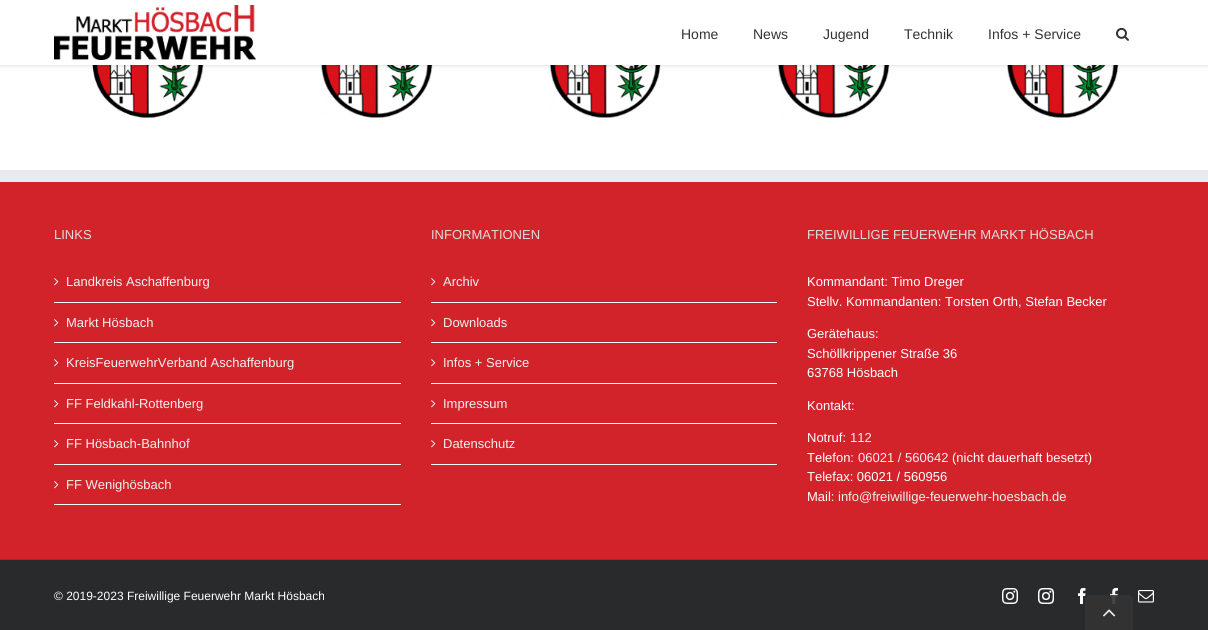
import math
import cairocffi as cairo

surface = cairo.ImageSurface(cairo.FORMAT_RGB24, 1208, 630)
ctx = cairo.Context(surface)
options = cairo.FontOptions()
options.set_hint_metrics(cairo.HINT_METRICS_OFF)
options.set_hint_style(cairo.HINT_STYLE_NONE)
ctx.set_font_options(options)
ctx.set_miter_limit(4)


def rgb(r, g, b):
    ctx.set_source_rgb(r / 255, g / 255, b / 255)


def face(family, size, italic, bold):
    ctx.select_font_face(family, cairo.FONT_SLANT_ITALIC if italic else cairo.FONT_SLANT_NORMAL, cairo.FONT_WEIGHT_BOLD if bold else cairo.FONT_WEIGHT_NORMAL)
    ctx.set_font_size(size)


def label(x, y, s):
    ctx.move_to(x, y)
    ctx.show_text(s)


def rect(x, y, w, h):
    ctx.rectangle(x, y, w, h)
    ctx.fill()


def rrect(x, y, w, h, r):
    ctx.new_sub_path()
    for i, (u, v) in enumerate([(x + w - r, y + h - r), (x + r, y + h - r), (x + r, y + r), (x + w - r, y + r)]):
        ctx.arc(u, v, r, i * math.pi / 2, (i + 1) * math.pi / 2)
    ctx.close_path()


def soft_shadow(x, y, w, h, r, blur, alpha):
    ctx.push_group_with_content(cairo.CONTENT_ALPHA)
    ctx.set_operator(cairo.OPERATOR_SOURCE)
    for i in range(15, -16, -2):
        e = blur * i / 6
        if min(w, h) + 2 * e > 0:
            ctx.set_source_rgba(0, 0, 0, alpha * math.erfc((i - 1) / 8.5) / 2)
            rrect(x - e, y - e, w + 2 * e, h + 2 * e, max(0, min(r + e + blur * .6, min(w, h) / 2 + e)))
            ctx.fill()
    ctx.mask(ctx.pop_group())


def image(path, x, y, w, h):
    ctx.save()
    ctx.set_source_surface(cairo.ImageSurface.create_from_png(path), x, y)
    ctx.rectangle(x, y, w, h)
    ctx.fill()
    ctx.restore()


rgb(255, 255, 255)
ctx.paint()
image('image2.png', 92, 65, 112, 53)
image('image3.png', 321, 65, 112, 53)
image('image4.png', 549, 65, 112, 53)
image('image5.png', 778, 65, 112, 53)
image('image6.png', 1007, 65, 112, 53)
rgb(0, 0, 0)
soft_shadow(0, 1, 1208, 65, 0, 1.5, 0.12)
rgb(255, 255, 255)
rect(0, 0, 1208, 65)
image('image0.png', 54, 5, 202, 55)
face('Liberation Sans', 14, 0, 0)
rgb(51, 51, 51)
label(681, 39, 'Home')
label(753, 39, 'News')
label(823, 39, 'Jugend')
label(904, 39, 'Technik')
label(988, 39, 'Infos + Service')
image('image1.png', 1116, 27, 13, 14)
rgb(210, 35, 42)
rect(0, 182, 1208, 377)
rgb(233, 234, 238)
rect(0, 170, 1208, 12)
face('Liberation Sans', 13, 0, 0)
rgb(221, 221, 221)
label(54, 239, 'LINKS')
rgb(255, 255, 255)
rect(54, 302, 347, 1)
image('image7.png', 54, 278, 5, 8)
rgb(240, 240, 240)
label(66, 286, 'Landkreis Aschaffenburg')
rgb(255, 255, 255)
rect(54, 342, 347, 1)
image('image7.png', 54, 319, 5, 8)
rgb(240, 240, 240)
label(66, 327, 'Markt Hösbach')
rgb(255, 255, 255)
rect(54, 383, 347, 1)
image('image7.png', 54, 359, 5, 8)
rgb(240, 240, 240)
label(66, 367, 'KreisFeuerwehrVerband Aschaffenburg')
rgb(255, 255, 255)
rect(54, 423, 347, 1)
image('image7.png', 54, 400, 5, 8)
rgb(240, 240, 240)
label(66, 408, 'FF Feldkahl-Rottenberg')
rgb(255, 255, 255)
rect(54, 464, 347, 1)
image('image7.png', 54, 440, 5, 8)
rgb(240, 240, 240)
label(66, 448, 'FF Hösbach-Bahnhof')
rgb(255, 255, 255)
rect(54, 504, 347, 1)
image('image7.png', 54, 481, 5, 8)
rgb(240, 240, 240)
label(66, 489, 'FF Wenighösbach')
rgb(221, 221, 221)
label(431, 239, 'INFORMATIONEN')
rgb(255, 255, 255)
rect(431, 302, 346, 1)
image('image7.png', 431, 278, 5, 8)
rgb(240, 240, 240)
label(443, 286, 'Archiv')
rgb(255, 255, 255)
rect(431, 342, 346, 1)
image('image7.png', 431, 319, 5, 8)
rgb(240, 240, 240)
label(443, 327, 'Downloads')
rgb(255, 255, 255)
rect(431, 383, 346, 1)
image('image7.png', 431, 359, 5, 8)
rgb(240, 240, 240)
label(443, 367, 'Infos + Service')
rgb(255, 255, 255)
rect(431, 423, 346, 1)
image('image7.png', 431, 400, 5, 8)
rgb(240, 240, 240)
label(443, 408, 'Impressum')
rgb(255, 255, 255)
rect(431, 464, 346, 1)
image('image7.png', 431, 440, 5, 8)
rgb(240, 240, 240)
label(443, 448, 'Datenschutz')
rgb(221, 221, 221)
label(807, 239, 'FREIWILLIGE FEUERWEHR MARKT HÖSBACH')
rgb(255, 255, 255)
label(807, 286, 'Kommandant: Timo Dreger')
label(807, 306, 'Stellv. Kommandanten: Torsten Orth, Stefan Becker')
label(807, 338, 'Gerätehaus:')
label(807, 358, 'Schöllkrippener Straße 36')
label(807, 377, '63768 Hösbach')
label(807, 410, 'Kontakt:')
label(807, 442, 'Notruf:')
rgb(240, 240, 240)
label(850, 442, '112')
rgb(255, 255, 255)
label(807, 462, 'Telefon:')
rgb(240, 240, 240)
label(858, 462, '06021 / 560642')
rgb(255, 255, 255)
label(952, 462, '(nicht dauerhaft besetzt)')
label(807, 481, 'Telefax: 06021 / 560956')
label(807, 501, 'Mail:')
rgb(240, 240, 240)
label(838, 501, 'info@freiwillige-feuerwehr-hoesbach.de')
rgb(40, 42, 43)
rect(0, 560, 1208, 70)
rgb(75, 76, 77)
rect(0, 559, 1208, 1)
face('Liberation Sans', 12, 0, 0)
rgb(255, 255, 255)
label(54, 600, '© 2019-2023 Freiwillige Feuerwehr Markt Hösbach')
image('image8.png', 1002, 588, 16, 16)
image('image9.png', 1038, 588, 16, 16)
image('image10.png', 1078, 588, 8, 16)
image('image11.png', 1110, 588, 8, 16)
image('image12.png', 1138, 590, 16, 13)
ctx.set_source_rgba(0.2, 0.2, 0.2, 0.9)
ctx.new_path()
ctx.move_to(1089, 595)
ctx.line_to(1129, 595)
ctx.curve_to(1131, 595, 1133, 597, 1133, 599)
ctx.line_to(1133, 630)
ctx.line_to(1085, 630)
ctx.line_to(1085, 599)
ctx.curve_to(1085, 597, 1087, 595, 1089, 595)
ctx.close_path()
ctx.fill()
image('image13.png', 1103, 609, 13, 8)
surface.write_to_png('render.png')
